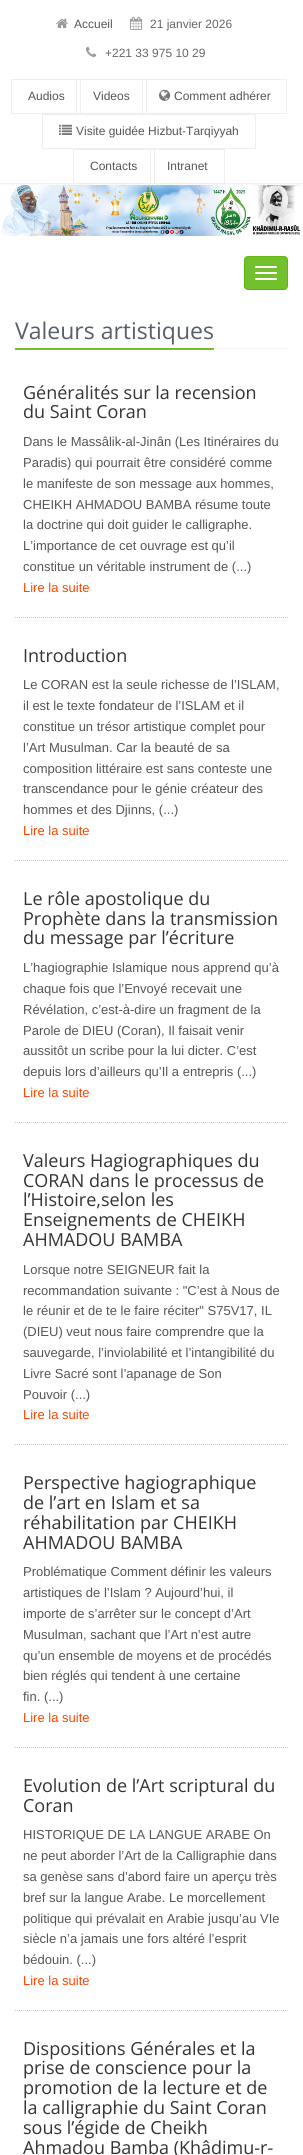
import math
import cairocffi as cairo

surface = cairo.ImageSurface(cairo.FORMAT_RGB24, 303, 2155)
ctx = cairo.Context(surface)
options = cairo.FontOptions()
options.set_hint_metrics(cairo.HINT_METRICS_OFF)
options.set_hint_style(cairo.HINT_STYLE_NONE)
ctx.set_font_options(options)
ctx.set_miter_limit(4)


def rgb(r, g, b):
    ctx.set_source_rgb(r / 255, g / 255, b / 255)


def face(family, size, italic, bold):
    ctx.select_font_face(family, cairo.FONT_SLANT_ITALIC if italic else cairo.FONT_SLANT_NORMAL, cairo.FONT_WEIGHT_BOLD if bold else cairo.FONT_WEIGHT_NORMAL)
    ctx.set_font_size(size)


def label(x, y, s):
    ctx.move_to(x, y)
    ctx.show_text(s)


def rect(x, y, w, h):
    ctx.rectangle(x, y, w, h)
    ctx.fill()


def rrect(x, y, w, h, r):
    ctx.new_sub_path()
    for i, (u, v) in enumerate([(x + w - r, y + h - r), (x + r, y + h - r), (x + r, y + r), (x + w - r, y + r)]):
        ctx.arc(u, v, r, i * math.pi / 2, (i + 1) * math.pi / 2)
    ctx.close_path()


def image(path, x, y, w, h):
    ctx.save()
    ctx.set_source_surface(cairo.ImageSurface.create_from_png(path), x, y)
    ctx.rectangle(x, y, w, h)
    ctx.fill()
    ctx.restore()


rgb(255, 255, 255)
ctx.paint()
image('image0.png', 0, 184, 303, 1)
rgb(240, 240, 240)
rect(0, 183, 303, 1)
image('image1.png', 56, 18, 12, 10)
face('Liberation Sans', 12, 0, 0)
rgb(85, 85, 85)
label(74, 28, 'Accueil')
image('image2.png', 130, 16, 13, 14)
rgb(102, 102, 102)
label(150, 28, '21 janvier 2026')
image('image3.png', 86, 46, 11, 11)
label(105, 57, '+221 33 975 10 29')
ctx.rectangle(11.5, 79.5, 69, 34)
rgb(238, 238, 238)
ctx.set_line_width(1)
ctx.stroke()
rgb(85, 85, 85)
label(28, 100, 'Audios')
ctx.rectangle(76.5, 79.5, 70, 34)
rgb(238, 238, 238)
ctx.stroke()
rgb(85, 85, 85)
label(93, 100, 'Videos')
ctx.rectangle(142.5, 79.5, 144, 34)
rgb(238, 238, 238)
ctx.stroke()
image('image4.png', 159, 89, 12, 12)
rgb(85, 85, 85)
label(174, 100, 'Comment adhérer')
ctx.rectangle(42.5, 114.5, 213, 34)
rgb(238, 238, 238)
ctx.stroke()
image('image5.png', 59, 124, 13, 11)
rgb(85, 85, 85)
label(76, 135, 'Visite guidée Hizbut-Tarqiyyah')
ctx.rectangle(73.5, 149.5, 81, 34)
rgb(238, 238, 238)
ctx.stroke()
rgb(85, 85, 85)
label(90, 170, 'Contacts')
ctx.rectangle(150.5, 149.5, 74, 34)
rgb(238, 238, 238)
ctx.stroke()
rgb(85, 85, 85)
label(167, 170, 'Intranet')
image('image6.png', 1, 185, 301, 51)
rgb(114, 192, 44)
rrect(244.5, 256.5, 43, 33, 3.5)
ctx.fill_preserve()
rgb(95, 182, 17)
ctx.stroke()
rgb(255, 255, 255)
rrect(255, 266, 22, 2, 1)
ctx.fill()
rrect(255, 272, 22, 2, 1)
ctx.fill()
rrect(255, 278, 22, 2, 1)
ctx.fill()
ctx.new_path()
ctx.move_to(15, 348.5)
ctx.line_to(288, 348.5)
rgb(228, 233, 240)
ctx.set_dash([1, 1])
ctx.stroke()
rgb(114, 192, 44)
rect(15, 348, 199, 2)
face('Open Sans', 23, 0, 0)
rgb(88, 95, 105)
label(15, 339, 'Valeurs artistiques')
ctx.new_path()
ctx.move_to(15, 617.5)
ctx.line_to(288, 617.5)
rgb(204, 204, 204)
ctx.stroke()
face('Open Sans', 18, 0, 0)
rgb(51, 51, 51)
label(23, 399, 'Généralités sur la recension')
label(23, 418, 'du Saint Coran')
face('Liberation Sans', 13, 0, 0)
rgb(85, 85, 85)
label(23, 446, 'Dans le Massâlik-al-Jinân (Les Itinéraires du')
label(23, 467, 'Paradis) qui pourrait être considéré comme')
label(23, 488, 'le manifeste de son message aux hommes,')
label(23, 509, 'CHEIKH AHMADOU BAMBA résume toute')
label(23, 529, 'la doctrine qui doit guider le calligraphe.')
label(23, 550, 'L’importance de cet ouvrage est qu’il')
label(23, 571, 'constitue un véritable instrument de (...)')
rgb(255, 69, 0)
label(23, 592, 'Lire la suite')
ctx.new_path()
ctx.move_to(15, 860.5)
ctx.line_to(288, 860.5)
rgb(204, 204, 204)
ctx.stroke()
face('Open Sans', 18, 0, 0)
rgb(51, 51, 51)
label(23, 662, 'Introduction')
face('Liberation Sans', 13, 0, 0)
rgb(85, 85, 85)
label(23, 689, 'Le CORAN est la seule richesse de l’ISLAM,')
label(23, 710, 'il est le texte fondateur de l’ISLAM et il')
label(23, 731, 'constitue un trésor artistique complet pour')
label(23, 752, 'l’Art Musulman. Car la beauté de sa')
label(23, 773, 'composition littéraire est sans conteste une')
label(23, 793, 'transcendance pour le génie créateur des')
label(23, 814, 'hommes et des Djinns, (...)')
rgb(255, 69, 0)
label(23, 835, 'Lire la suite')
ctx.new_path()
ctx.move_to(15, 1122.5)
ctx.line_to(288, 1122.5)
rgb(204, 204, 204)
ctx.stroke()
face('Open Sans', 18, 0, 0)
rgb(51, 51, 51)
label(23, 905, 'Le rôle apostolique du')
label(23, 925, 'Prophète dans la transmission')
label(23, 944, 'du message par l’écriture')
face('Liberation Sans', 13, 0, 0)
rgb(85, 85, 85)
label(23, 972, 'L’hagiographie Islamique nous apprend qu’à')
label(23, 993, 'chaque fois que l’Envoyé recevait une')
label(23, 1014, 'Révélation, c’est-à-dire un fragment de la')
label(23, 1035, 'Parole de DIEU (Coran), Il faisait venir')
label(23, 1055, 'aussitôt un scribe pour la lui dicter. C’est')
label(23, 1076, 'depuis lors d’ailleurs qu’Il a entrepris (...)')
rgb(255, 69, 0)
label(23, 1097, 'Lire la suite')
ctx.new_path()
ctx.move_to(15, 1444.5)
ctx.line_to(288, 1444.5)
rgb(204, 204, 204)
ctx.stroke()
face('Open Sans', 18, 0, 0)
rgb(51, 51, 51)
label(23, 1167, 'Valeurs Hagiographiques du')
label(23, 1187, 'CORAN dans le processus de')
label(23, 1206, 'l’Histoire,selon les')
label(23, 1226, 'Enseignements de CHEIKH')
label(23, 1246, 'AHMADOU BAMBA')
face('Liberation Sans', 13, 0, 0)
rgb(85, 85, 85)
label(23, 1274, 'Lorsque notre SEIGNEUR fait la')
label(23, 1295, 'recommandation suivante : "C’est à Nous de')
label(23, 1315, 'le réunir et de te le faire réciter" S75V17, IL')
label(23, 1336, '(DIEU) veut nous faire comprendre que la')
label(23, 1357, 'sauvegarde, l’inviolabilité et l’intangibilité du')
label(23, 1378, 'Livre Sacré sont l’apanage de Son')
label(23, 1399, 'Pouvoir (...)')
rgb(255, 69, 0)
label(23, 1419, 'Lire la suite')
ctx.new_path()
ctx.move_to(15, 1747.5)
ctx.line_to(288, 1747.5)
rgb(204, 204, 204)
ctx.stroke()
face('Open Sans', 18, 0, 0)
rgb(51, 51, 51)
label(23, 1489, 'Perspective hagiographique')
label(23, 1509, 'de l’art en Islam et sa')
label(23, 1529, 'réhabilitation par CHEIKH')
label(23, 1549, 'AHMADOU BAMBA')
face('Liberation Sans', 13, 0, 0)
rgb(85, 85, 85)
label(23, 1576, 'Problématique Comment définir les valeurs')
label(23, 1597, 'artistiques de l’Islam ? Aujourd’hui, il')
label(23, 1618, 'importe de s’arrêter sur le concept d’Art')
label(23, 1639, 'Musulman, sachant que l’Art n’est autre')
label(23, 1660, 'qu’un ensemble de moyens et de procédés')
label(23, 1680, 'bien réglés qui tendent à une certaine')
label(23, 1701, 'fin. (...)')
rgb(255, 69, 0)
label(23, 1722, 'Lire la suite')
ctx.new_path()
ctx.move_to(15, 2010.5)
ctx.line_to(288, 2010.5)
rgb(204, 204, 204)
ctx.stroke()
face('Open Sans', 18, 0, 0)
rgb(51, 51, 51)
label(23, 1792, 'Evolution de l’Art scriptural du')
label(23, 1812, 'Coran')
face('Liberation Sans', 13, 0, 0)
rgb(85, 85, 85)
label(23, 1839, 'HISTORIQUE DE LA LANGUE ARABE On')
label(23, 1860, 'ne peut aborder l’Art de la Calligraphie dans')
label(23, 1881, 'sa genèse sans d’abord faire un aperçu très')
label(23, 1902, 'bref sur la langue Arabe. Le morcellement')
label(23, 1923, 'politique qui prévalait en Arabie jusqu’au VIe')
label(23, 1943, 'siècle n’a jamais une fors altéré l’esprit')
label(23, 1964, 'bédouin. (...)')
rgb(255, 69, 0)
label(23, 1985, 'Lire la suite')
face('Open Sans', 18, 0, 0)
rgb(51, 51, 51)
label(23, 2055, 'Dispositions Générales et la')
label(23, 2074, 'prise de conscience pour la')
label(23, 2094, 'promotion de la lecture et de')
label(23, 2114, 'la calligraphie du Saint Coran')
label(23, 2134, 'sous l’égide de Cheikh')
label(23, 2154, 'Ahmadou Bamba (Khâdimu-r-')
surface.write_to_png('render.png')
